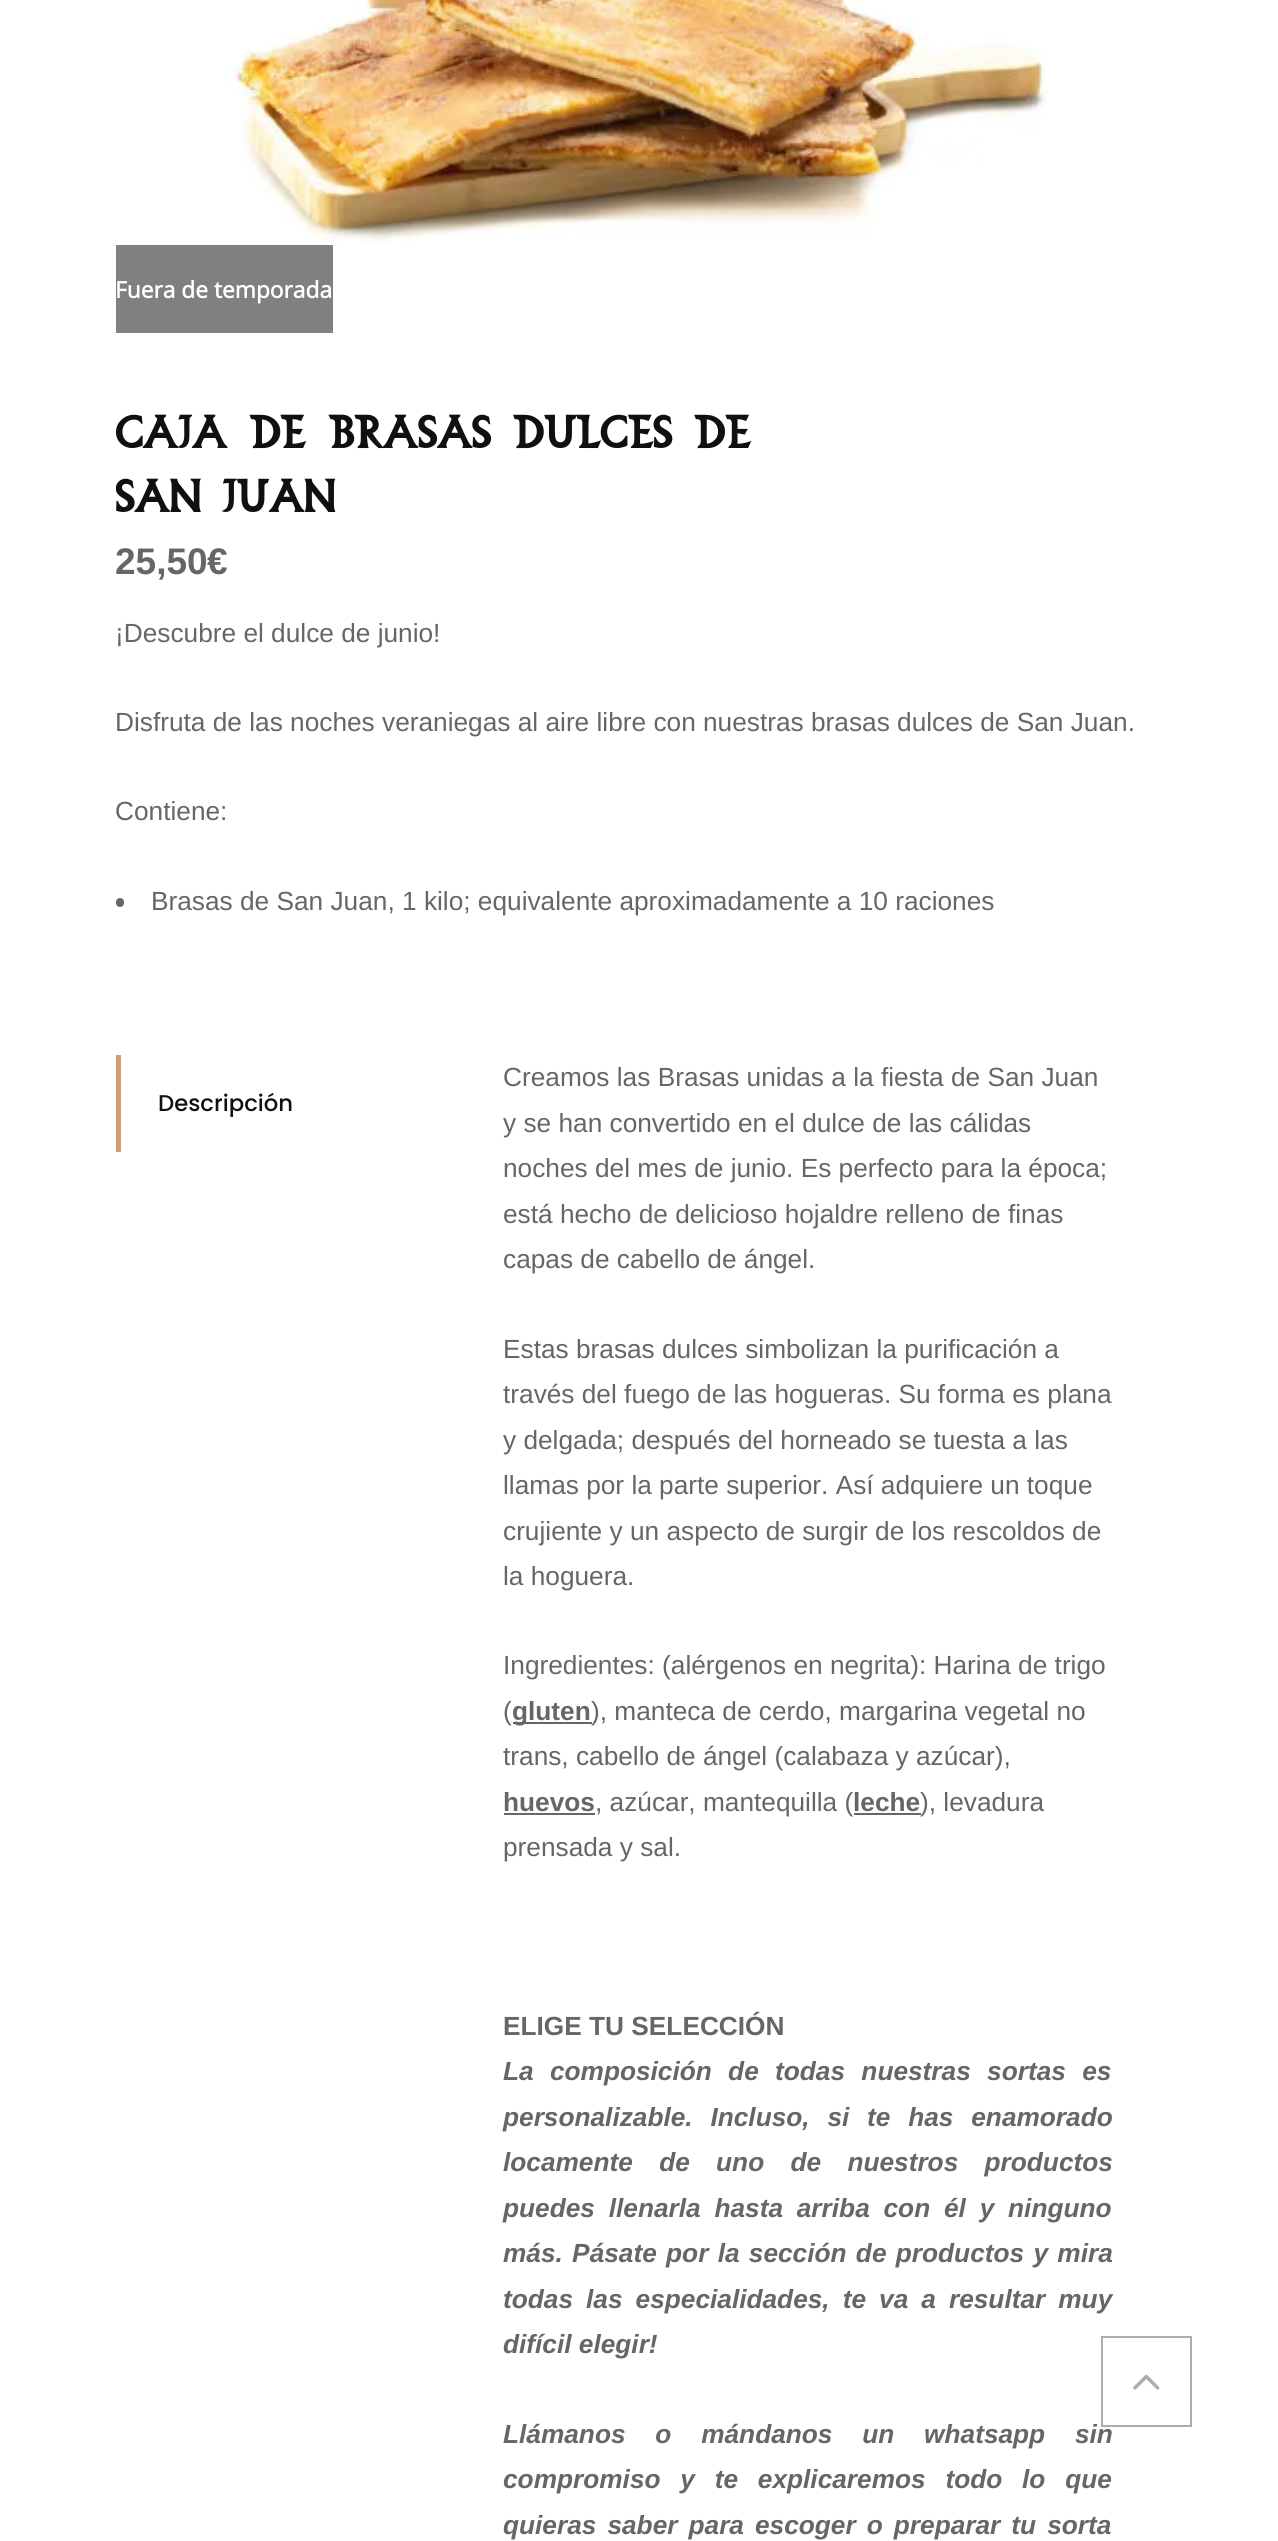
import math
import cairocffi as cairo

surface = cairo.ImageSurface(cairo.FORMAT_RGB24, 1278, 2541)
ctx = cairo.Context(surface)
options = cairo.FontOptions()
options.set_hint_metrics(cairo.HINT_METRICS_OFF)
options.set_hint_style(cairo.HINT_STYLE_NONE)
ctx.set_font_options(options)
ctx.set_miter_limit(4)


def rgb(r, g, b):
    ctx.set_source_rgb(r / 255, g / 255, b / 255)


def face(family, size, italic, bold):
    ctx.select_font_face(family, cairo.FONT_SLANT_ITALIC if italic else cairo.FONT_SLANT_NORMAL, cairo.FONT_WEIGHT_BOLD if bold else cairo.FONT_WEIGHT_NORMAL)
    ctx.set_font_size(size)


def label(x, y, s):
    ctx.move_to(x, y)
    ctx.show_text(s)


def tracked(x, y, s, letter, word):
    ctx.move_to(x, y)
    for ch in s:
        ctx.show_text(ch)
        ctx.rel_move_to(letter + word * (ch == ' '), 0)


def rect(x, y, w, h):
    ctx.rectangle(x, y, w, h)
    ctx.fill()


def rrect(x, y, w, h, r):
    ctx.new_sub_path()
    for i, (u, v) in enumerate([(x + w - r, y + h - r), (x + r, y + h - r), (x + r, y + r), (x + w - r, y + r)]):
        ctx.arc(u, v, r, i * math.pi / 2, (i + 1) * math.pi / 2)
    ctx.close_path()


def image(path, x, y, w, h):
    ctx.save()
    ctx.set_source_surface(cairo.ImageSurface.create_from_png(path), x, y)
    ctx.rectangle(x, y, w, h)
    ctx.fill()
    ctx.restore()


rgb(255, 255, 255)
ctx.paint()
image('image0.png', 227, 0, 821, 244)
rgb(128, 128, 128)
rect(116, 245, 217, 88)
face('Open Sans', 22.75, 0, 1)
rgb(255, 255, 255)
label(115, 298, 'Fuera de temporada')
ctx.save()
ctx.rectangle(116, 0, 1050, 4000)
ctx.clip()
face('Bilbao', 45.5, 0, 1)
rgb(16, 16, 16)
tracked(115, 448, 'Caja de Brasas dulces de', -0.9, 0)
tracked(115, 512, 'San Juan', -0.9, 0)
face('Liberation Sans', 37, 0, 1)
rgb(102, 102, 102)
label(115, 574, '25,50')
ctx.restore()
face('Liberation Sans', 37, 0, 1)
rgb(102, 102, 102)
label(207, 574, '€')
face('Liberation Sans', 26.25, 0, 0)
label(115, 642, '¡Descubre el dulce de junio!')
label(115, 731, 'Disfruta de las noches veraniegas al aire libre con nuestras brasas dulces de San Juan.')
label(115, 820, 'Contiene:')
rrect(116, 898, 8, 9, 4)
ctx.fill()
label(151, 910, 'Brasas de San Juan, 1 kilo; equivalente aproximadamente a 10 raciones')
rgb(202, 160, 125)
rect(116, 1055, 5, 97)
face('Poppins Medium', 22.75, 0, 0)
rgb(16, 16, 16)
label(158, 1111, 'Descripción')
face('Liberation Sans', 26.25, 0, 0)
rgb(102, 102, 102)
label(503, 1086, 'Creamos las Brasas unidas a la fiesta de San Juan')
label(503, 1132, 'y se han convertido en el dulce de las cálidas')
label(503, 1177, 'noches del mes de junio. Es perfecto para la época;')
label(503, 1223, 'está hecho de delicioso hojaldre relleno de finas')
label(503, 1268, 'capas de cabello de ángel.')
label(503, 1358, 'Estas brasas dulces simbolizan la purificación a')
label(503, 1403, 'través del fuego de las hogueras. Su forma es plana')
label(503, 1449, 'y delgada; después del horneado se tuesta a las')
label(503, 1494, 'llamas por la parte superior. Así adquiere un toque')
label(503, 1540, 'crujiente y un aspecto de surgir de los rescoldos de')
label(503, 1585, 'la hoguera.')
label(503, 1674, 'Ingredientes: (alérgenos en negrita): Harina de trigo')
label(503, 1720, '(')
rect(513, 1722, 79, 2)
face('Liberation Sans', 26.25, 0, 1)
label(512, 1720, 'gluten')
face('Liberation Sans', 26.25, 0, 0)
label(591, 1720, '), manteca de cerdo, margarina vegetal no')
label(503, 1765, 'trans, cabello de ángel (calabaza y azúcar),')
face('Liberation Sans', 26.25, 0, 1)
label(503, 1811, 'huevos')
rect(504, 1813, 91, 2)
face('Liberation Sans', 26.25, 0, 0)
label(595, 1811, ', azúcar, mantequilla (')
face('Liberation Sans', 26.25, 0, 1)
label(853, 1811, 'leche')
rect(854, 1813, 67, 2)
face('Liberation Sans', 26.25, 0, 0)
label(920, 1811, '), levadura')
label(503, 1856, 'prensada y sal.')
face('Liberation Sans', 26.25, 0, 1)
label(503, 2035, 'ELIGE TU SELECCIÓN')
face('Liberation Sans', 26.25, 1, 1)
tracked(503, 2080, 'La composición de todas nuestras sortas es', 0, 9)
tracked(503, 2126, 'personalizable. Incluso, si te has enamorado', 0, 10.5)
tracked(503, 2171, 'locamente de uno de nuestros productos', 0, 19)
tracked(503, 2217, 'puedes llenarla hasta arriba con él y ninguno', 0, 6.5)
tracked(503, 2262, 'más. Pásate por la sección de productos y mira', 0, 2)
tracked(503, 2308, 'todas las especialidades, te va a resultar muy', 0, 5.75)
label(503, 2353, 'difícil elegir!')
tracked(503, 2443, 'Llámanos o mándanos un whatsapp sin', 0, 22.5)
tracked(503, 2488, 'compromiso y te explicaremos todo lo que', 0, 12.5)
tracked(503, 2534, 'quieras saber para escoger o preparar tu sorta', 0, 3.75)
ctx.rectangle(1102, 2337, 89, 89)
rgb(173, 173, 173)
ctx.stroke()
image('image1.png', 1133, 2374, 27, 16)
surface.write_to_png('render.png')
